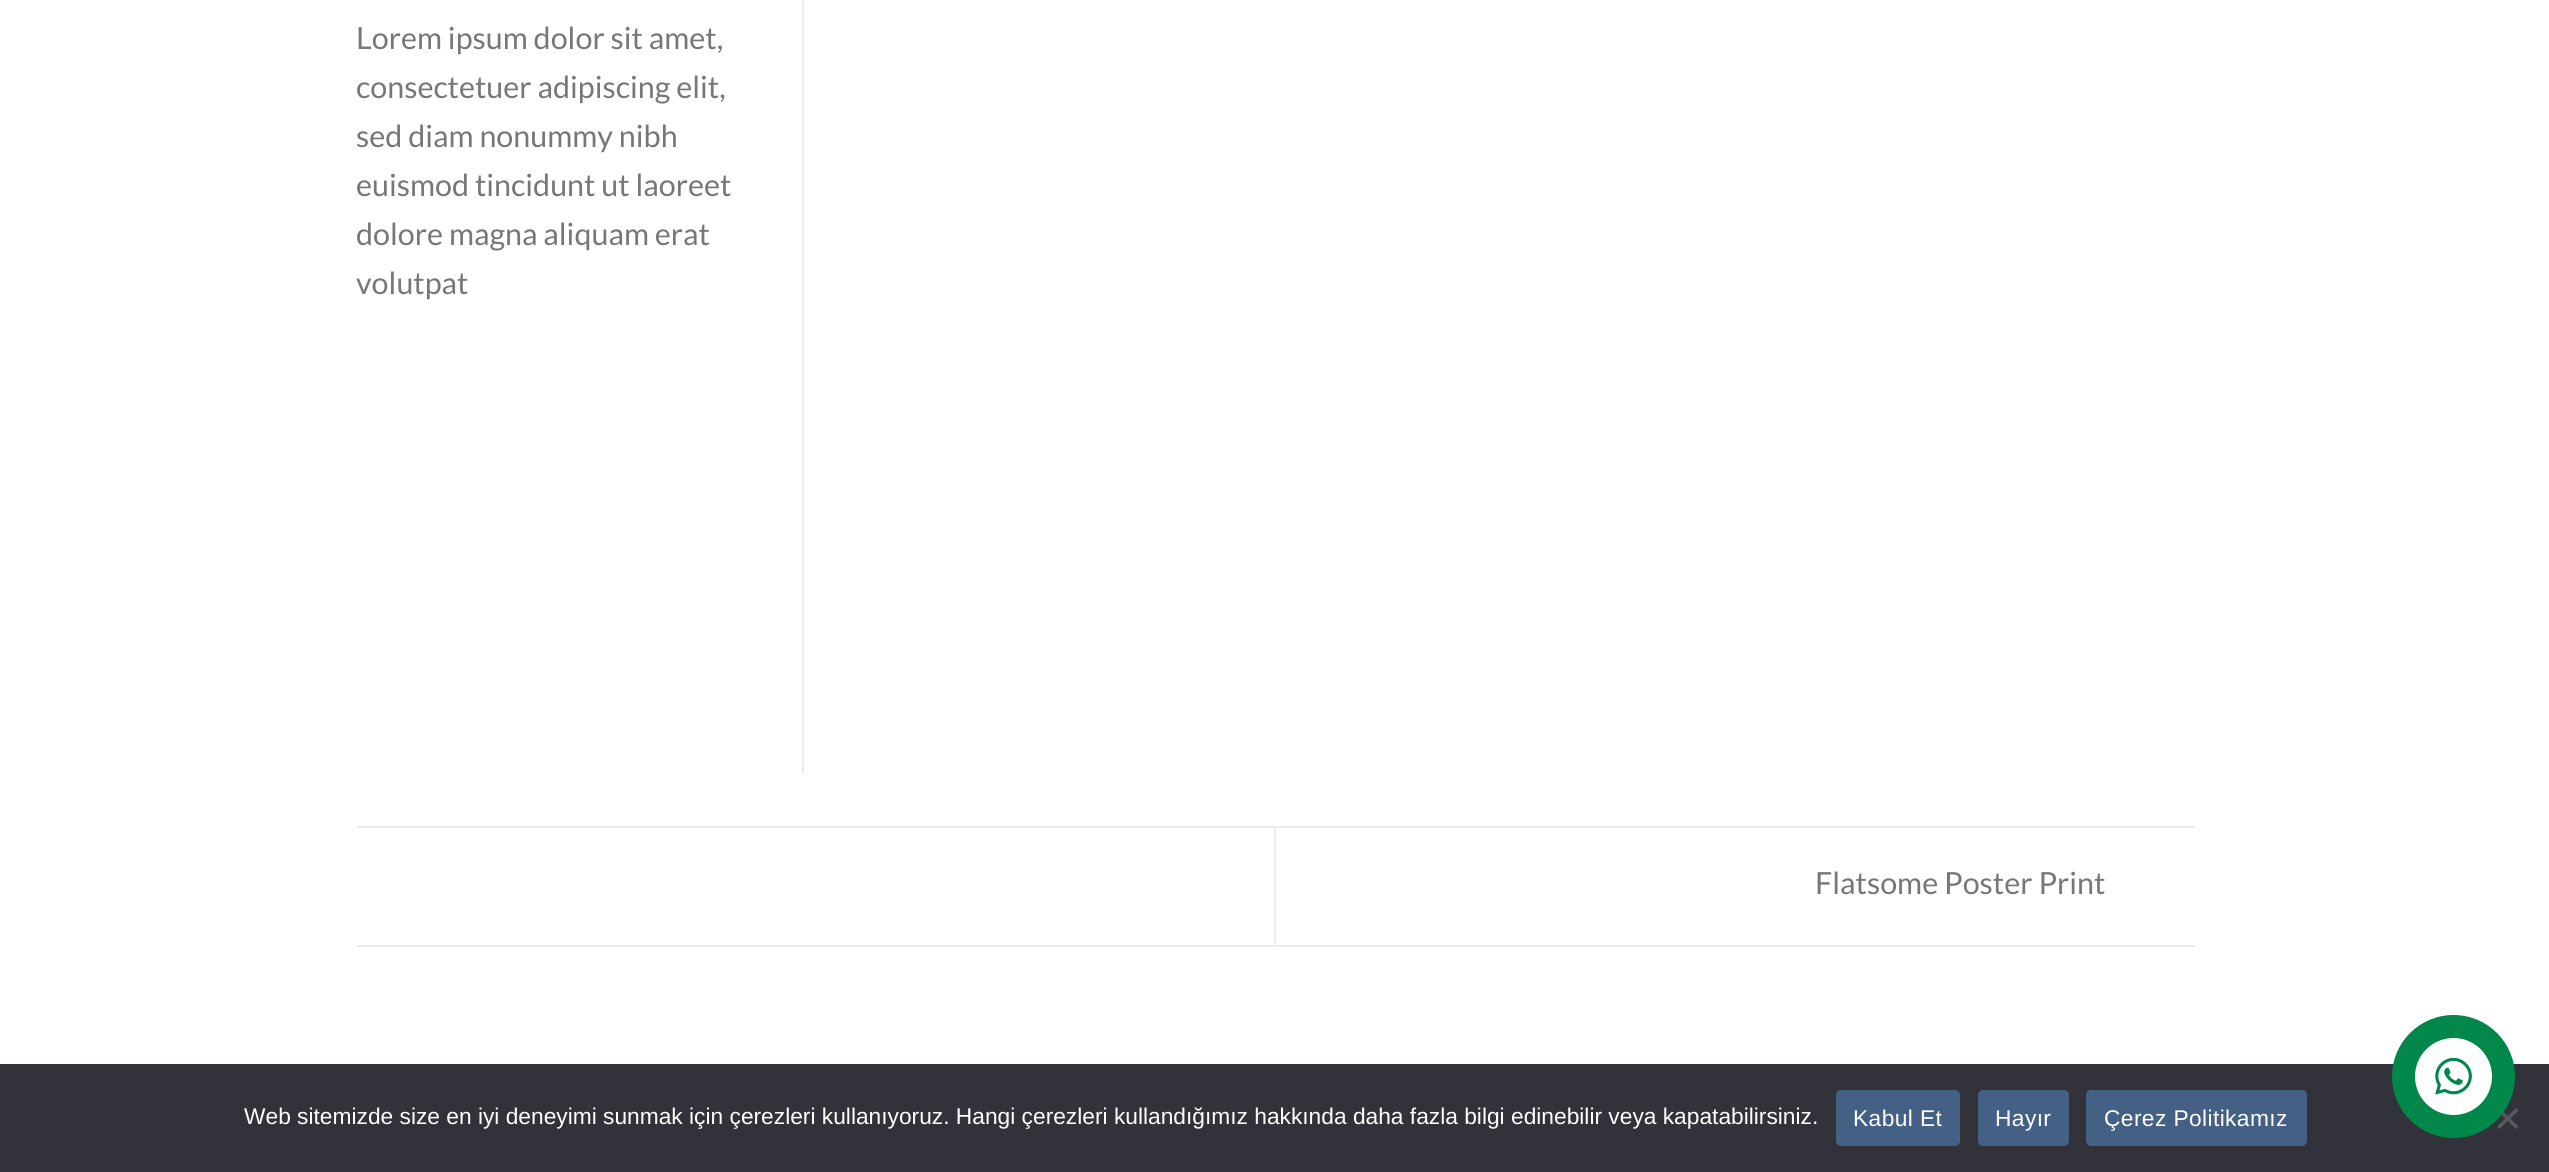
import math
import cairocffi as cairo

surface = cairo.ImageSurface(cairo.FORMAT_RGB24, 2549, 1172)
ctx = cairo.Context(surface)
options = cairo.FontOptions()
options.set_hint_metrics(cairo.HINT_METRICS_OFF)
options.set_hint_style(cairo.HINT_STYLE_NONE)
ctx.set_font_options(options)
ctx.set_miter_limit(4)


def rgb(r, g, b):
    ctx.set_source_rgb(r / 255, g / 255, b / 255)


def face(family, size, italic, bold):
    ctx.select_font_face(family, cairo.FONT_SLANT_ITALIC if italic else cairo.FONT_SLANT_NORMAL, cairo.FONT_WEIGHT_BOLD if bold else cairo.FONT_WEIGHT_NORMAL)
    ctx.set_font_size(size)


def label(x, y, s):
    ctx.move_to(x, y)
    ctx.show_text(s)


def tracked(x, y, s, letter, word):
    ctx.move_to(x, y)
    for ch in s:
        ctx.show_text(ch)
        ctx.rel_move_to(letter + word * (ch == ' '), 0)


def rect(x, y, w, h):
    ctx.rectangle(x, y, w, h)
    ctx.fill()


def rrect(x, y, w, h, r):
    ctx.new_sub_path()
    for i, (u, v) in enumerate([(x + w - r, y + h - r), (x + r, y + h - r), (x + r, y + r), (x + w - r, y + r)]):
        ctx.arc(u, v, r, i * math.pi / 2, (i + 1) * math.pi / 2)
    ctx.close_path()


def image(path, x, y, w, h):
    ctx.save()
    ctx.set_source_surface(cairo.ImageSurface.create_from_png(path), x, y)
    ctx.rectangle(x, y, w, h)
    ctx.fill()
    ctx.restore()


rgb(255, 255, 255)
ctx.paint()
rgb(236, 236, 236)
rect(802, 0, 2, 774)
face('Lato', 30.5, 0, 0)
rgb(119, 119, 119)
label(356, 49, 'Lorem ipsum dolor sit amet,')
label(356, 98, 'consectetuer adipiscing elit,')
label(356, 147, 'sed diam nonummy nibh')
label(356, 196, 'euismod tincidunt ut laoreet')
label(356, 245, 'dolore magna aliquam erat')
label(356, 294, 'volutpat')
rgb(236, 236, 236)
rect(357, 826, 1838, 2)
rect(357, 945, 1838, 2)
rect(1274, 828, 2, 117)
rgb(119, 119, 119)
label(1815, 894, 'Flatsome Poster Print')
rgb(50, 50, 58)
rect(0, 1064, 2549, 108)
face('Liberation Sans', 22.75, 0, 0)
rgb(255, 255, 255)
label(244, 1124, 'Web sitemizde size en iyi deneyimi sunmak için çerezleri kullanıyoruz. Hangi çerezleri kullandığımız hakkında daha fazla bilgi edinebilir veya kapatabilirsiniz.')
rgb(68, 96, 132)
rrect(1836, 1090, 124, 56, 5)
ctx.fill()
rgb(255, 255, 255)
tracked(1853, 1126, 'Kabul Et', 0.4, 0)
rgb(68, 96, 132)
rrect(1978, 1090, 91, 56, 5)
ctx.fill()
rgb(255, 255, 255)
tracked(1995, 1126, 'Hayır', 0.4, 0)
rgb(68, 96, 132)
rrect(2086, 1090, 221, 56, 5)
ctx.fill()
rgb(255, 255, 255)
tracked(2104, 1126, 'Çerez Politikamız', 0.4, 0)
rgb(89, 89, 93)
ctx.new_path()
ctx.move_to(2516, 1108)
ctx.line_to(2518.5, 1110.5)
ctx.line_to(2499.5, 1129)
ctx.line_to(2497, 1126.5)
ctx.close_path()
ctx.fill()
ctx.new_path()
ctx.move_to(2497, 1110.5)
ctx.line_to(2499.5, 1108)
ctx.line_to(2518.5, 1126.5)
ctx.line_to(2516, 1129)
ctx.close_path()
ctx.fill()
rgb(0, 135, 73)
ctx.arc(2453.5, 1076.5, 61.5, 0, 2 * math.pi)
ctx.fill()
rgb(255, 255, 255)
ctx.arc(2453.5, 1076.5, 38.5, 0, 2 * math.pi)
ctx.fill()
image('image0.png', 2435, 1057, 37, 38)
surface.write_to_png('render.png')
